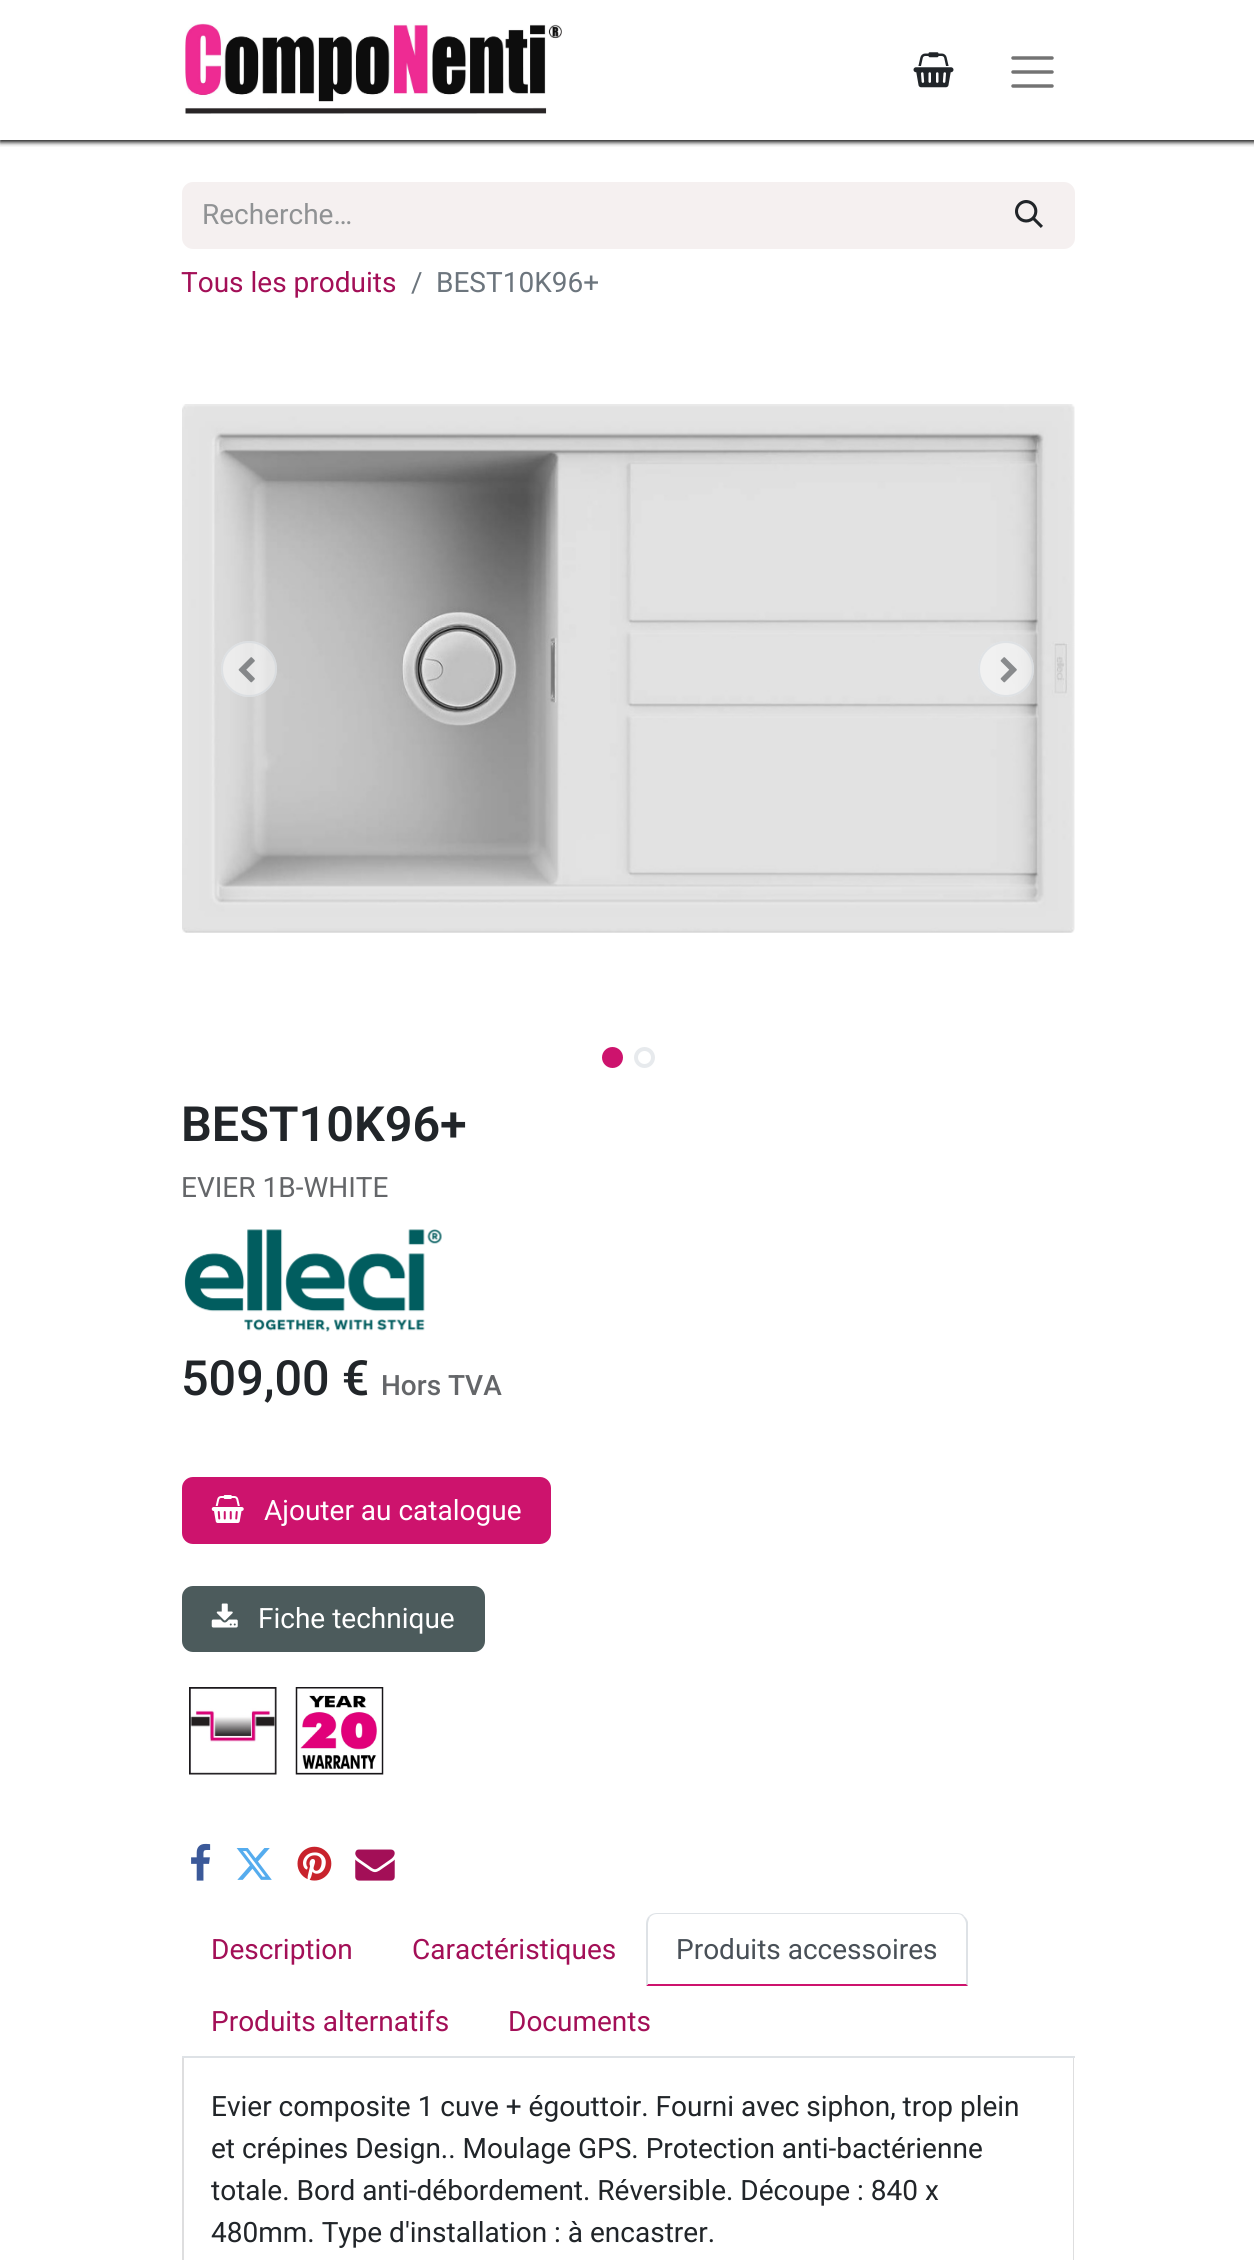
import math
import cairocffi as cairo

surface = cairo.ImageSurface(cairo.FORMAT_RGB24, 1254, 2260)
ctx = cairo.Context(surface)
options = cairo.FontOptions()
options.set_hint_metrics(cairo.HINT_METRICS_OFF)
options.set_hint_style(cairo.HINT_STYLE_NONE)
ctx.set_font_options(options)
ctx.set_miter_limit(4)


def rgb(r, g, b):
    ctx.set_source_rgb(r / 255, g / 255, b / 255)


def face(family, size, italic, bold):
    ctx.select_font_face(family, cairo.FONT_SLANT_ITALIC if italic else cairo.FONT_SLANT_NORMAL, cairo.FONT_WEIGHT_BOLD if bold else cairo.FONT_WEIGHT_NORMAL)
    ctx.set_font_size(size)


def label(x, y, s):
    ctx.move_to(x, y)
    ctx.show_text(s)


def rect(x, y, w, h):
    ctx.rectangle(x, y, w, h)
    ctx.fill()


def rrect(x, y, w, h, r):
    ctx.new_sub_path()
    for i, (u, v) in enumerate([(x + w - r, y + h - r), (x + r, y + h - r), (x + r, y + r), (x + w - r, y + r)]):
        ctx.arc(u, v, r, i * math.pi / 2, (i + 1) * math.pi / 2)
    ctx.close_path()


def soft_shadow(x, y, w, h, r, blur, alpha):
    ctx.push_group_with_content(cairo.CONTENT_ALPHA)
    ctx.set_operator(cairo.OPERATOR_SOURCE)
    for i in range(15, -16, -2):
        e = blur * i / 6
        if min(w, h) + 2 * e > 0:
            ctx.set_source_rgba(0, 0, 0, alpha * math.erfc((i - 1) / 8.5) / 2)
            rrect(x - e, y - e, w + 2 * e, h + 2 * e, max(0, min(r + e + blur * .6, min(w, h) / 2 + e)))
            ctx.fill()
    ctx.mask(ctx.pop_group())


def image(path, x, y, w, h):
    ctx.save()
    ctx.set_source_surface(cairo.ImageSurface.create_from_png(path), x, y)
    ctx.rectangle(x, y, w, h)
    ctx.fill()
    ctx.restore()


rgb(255, 255, 255)
ctx.paint()
ctx.save()
ctx.rectangle(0, 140, 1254, 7)
ctx.clip()
rgb(0, 0, 0)
soft_shadow(0, 2, 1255, 140, 0, 2.5, 1)
ctx.restore()
image('image0.png', 185, 23, 377, 91)
image('image1.png', 913, 52, 41, 36)
ctx.new_path()
ctx.move_to(1013, 58)
ctx.line_to(1052, 58)
ctx.move_to(1013, 72)
ctx.line_to(1052, 72)
ctx.move_to(1013, 86)
ctx.line_to(1052, 86)
rgb(115, 115, 115)
ctx.set_line_width(3.5)
ctx.set_line_cap(cairo.LINE_CAP_ROUND)
ctx.stroke()
rgb(245, 240, 240)
ctx.new_path()
ctx.move_to(193, 182)
ctx.line_to(987, 182)
ctx.line_to(987, 249)
ctx.line_to(193, 249)
ctx.curve_to(187, 249, 182, 244, 182, 238)
ctx.line_to(182, 193)
ctx.curve_to(182, 187, 187, 182, 193, 182)
ctx.close_path()
ctx.fill()
face('Roboto', 28, 0, 0)
rgb(144, 146, 148)
label(202, 224, 'Recherche…')
rgb(245, 240, 240)
ctx.new_path()
ctx.move_to(986, 183)
ctx.line_to(1064, 183)
ctx.curve_to(1069.5, 183, 1074, 187.5, 1074, 193)
ctx.line_to(1074, 238)
ctx.curve_to(1074, 243.5, 1069.5, 248, 1064, 248)
ctx.line_to(986, 248)
ctx.close_path()
ctx.fill_preserve()
ctx.set_line_width(2)
ctx.set_line_cap(cairo.LINE_CAP_BUTT)
ctx.stroke()
image('image2.png', 1015, 200, 28, 28)
rgb(163, 15, 87)
label(181, 292, 'Tous les produits')
rgb(108, 117, 125)
label(411, 292, '/')
label(436, 292, 'BEST10K96+')
image('image3.png', 182, 404, 893, 529)
ctx.set_source_rgba(1, 1, 1, 0.5)
ctx.arc(249, 669, 28, 0, 2 * math.pi)
ctx.fill()
ctx.arc(249, 669, 27, 0, 2 * math.pi)
ctx.set_source_rgba(0.808, 0.831, 0.855, 0.5)
ctx.stroke()
image('image4.png', 238, 657, 17, 26)
ctx.set_source_rgba(1, 1, 1, 0.5)
ctx.arc(1006, 669, 28, 0, 2 * math.pi)
ctx.fill()
ctx.arc(1006, 669, 27, 0, 2 * math.pi)
ctx.set_source_rgba(0.808, 0.831, 0.855, 0.5)
ctx.stroke()
image('image5.png', 1000, 657, 17, 26)
rgb(205, 19, 109)
ctx.arc(612.5, 1057.5, 8.5, 0, 2 * math.pi)
ctx.fill_preserve()
ctx.set_line_width(4)
ctx.stroke()
ctx.arc(644.5, 1057.5, 8.5, 0, 2 * math.pi)
rgb(231, 234, 237)
ctx.stroke()
face('Roboto SemiBold', 48.5, 0, 0)
rgb(33, 37, 41)
label(181, 1141, 'BEST10K96+')
face('Roboto', 28, 0, 0)
rgb(100, 102, 105)
label(181, 1197, 'EVIER 1B-WHITE')
image('image6.png', 184, 1229, 258, 103)
face('Roboto Medium', 48.5, 0, 0)
rgb(33, 37, 41)
label(181, 1395, '509,00 €')
face('Roboto Medium', 28, 0, 0)
rgb(100, 102, 105)
label(381, 1395, 'Hors TVA')
rgb(205, 19, 109)
rrect(183, 1478, 367, 65, 10)
ctx.fill_preserve()
ctx.set_line_width(2)
ctx.stroke()
image('image7.png', 211, 1495, 33, 28)
face('Roboto', 28, 0, 0)
rgb(255, 255, 255)
label(264, 1520, 'Ajouter au catalogue')
rgb(76, 91, 92)
rrect(183, 1587, 301, 64, 10)
ctx.fill_preserve()
ctx.stroke()
image('image8.png', 211, 1603, 27, 25)
rgb(255, 255, 255)
label(258, 1628, 'Fiche technique')
image('image9.png', 189, 1687, 88, 88)
image('image10.png', 295, 1687, 89, 88)
image('image11.png', 191, 1843, 20, 38)
image('image12.png', 236, 1848, 36, 32)
image('image13.png', 297, 1846, 35, 35)
image('image14.png', 355, 1849, 40, 32)
rgb(222, 226, 230)
rect(182, 2056, 893, 2)
rgb(163, 15, 87)
label(211, 1959, 'Description')
label(412, 1959, 'Caractéristiques')
rgb(222, 226, 230)
ctx.new_path()
ctx.move_to(657, 1913)
ctx.curve_to(654, 1913, 651, 1914, 649, 1916)
ctx.line_to(650, 1917)
ctx.curve_to(652, 1915, 654, 1914, 657, 1914)
ctx.line_to(957, 1914)
ctx.curve_to(960, 1914, 962, 1915, 963, 1917)
ctx.line_to(964, 1916)
ctx.curve_to(963, 1914, 960, 1913, 957, 1913)
ctx.close_path()
ctx.fill()
ctx.new_path()
ctx.move_to(964, 1916)
ctx.curve_to(966, 1918, 967, 1919, 968, 1922)
ctx.line_to(968, 1986)
ctx.line_to(966, 1984)
ctx.line_to(966, 1924)
ctx.curve_to(966, 1922, 965, 1919, 963, 1917)
ctx.close_path()
ctx.fill()
rgb(205, 19, 109)
ctx.new_path()
ctx.move_to(968, 1986)
ctx.line_to(646, 1986)
ctx.line_to(648, 1984)
ctx.line_to(966, 1984)
ctx.close_path()
ctx.fill()
rgb(222, 226, 230)
ctx.new_path()
ctx.move_to(649, 1916)
ctx.curve_to(647, 1918, 646, 1921, 646, 1924)
ctx.line_to(646, 1986)
ctx.line_to(648, 1984)
ctx.line_to(648, 1924)
ctx.curve_to(648, 1922, 649, 1919, 650, 1917)
ctx.close_path()
ctx.fill()
rgb(73, 80, 87)
label(676, 1959, 'Produits accessoires')
rgb(163, 15, 87)
label(211, 2031, 'Produits alternatifs')
label(508, 2031, 'Documents')
rgb(222, 222, 223)
ctx.set_fill_rule(cairo.FILL_RULE_EVEN_ODD)
ctx.new_path()
ctx.move_to(182, 2058)
ctx.line_to(1074, 2058)
ctx.line_to(1074, 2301)
ctx.curve_to(1074, 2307, 1069, 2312, 1063, 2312)
ctx.line_to(193, 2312)
ctx.curve_to(187, 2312, 182, 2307, 182, 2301)
ctx.close_path()
ctx.move_to(184, 2058)
ctx.line_to(1073, 2058)
ctx.line_to(1073, 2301)
ctx.curve_to(1073, 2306, 1069, 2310, 1063, 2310)
ctx.line_to(193, 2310)
ctx.curve_to(188, 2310, 184, 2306, 184, 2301)
ctx.close_path()
ctx.fill()
rgb(33, 37, 41)
label(211, 2116, 'Evier composite 1 cuve + égouttoir. Fourni avec siphon, trop plein')
label(211, 2158, 'et crépines Design.. Moulage GPS. Protection anti-bactérienne')
label(211, 2200, 'totale. Bord anti-débordement. Réversible. Découpe : 840 x')
label(211, 2242, '480mm. Type d\'installation : à encastrer.')
surface.write_to_png('render.png')
